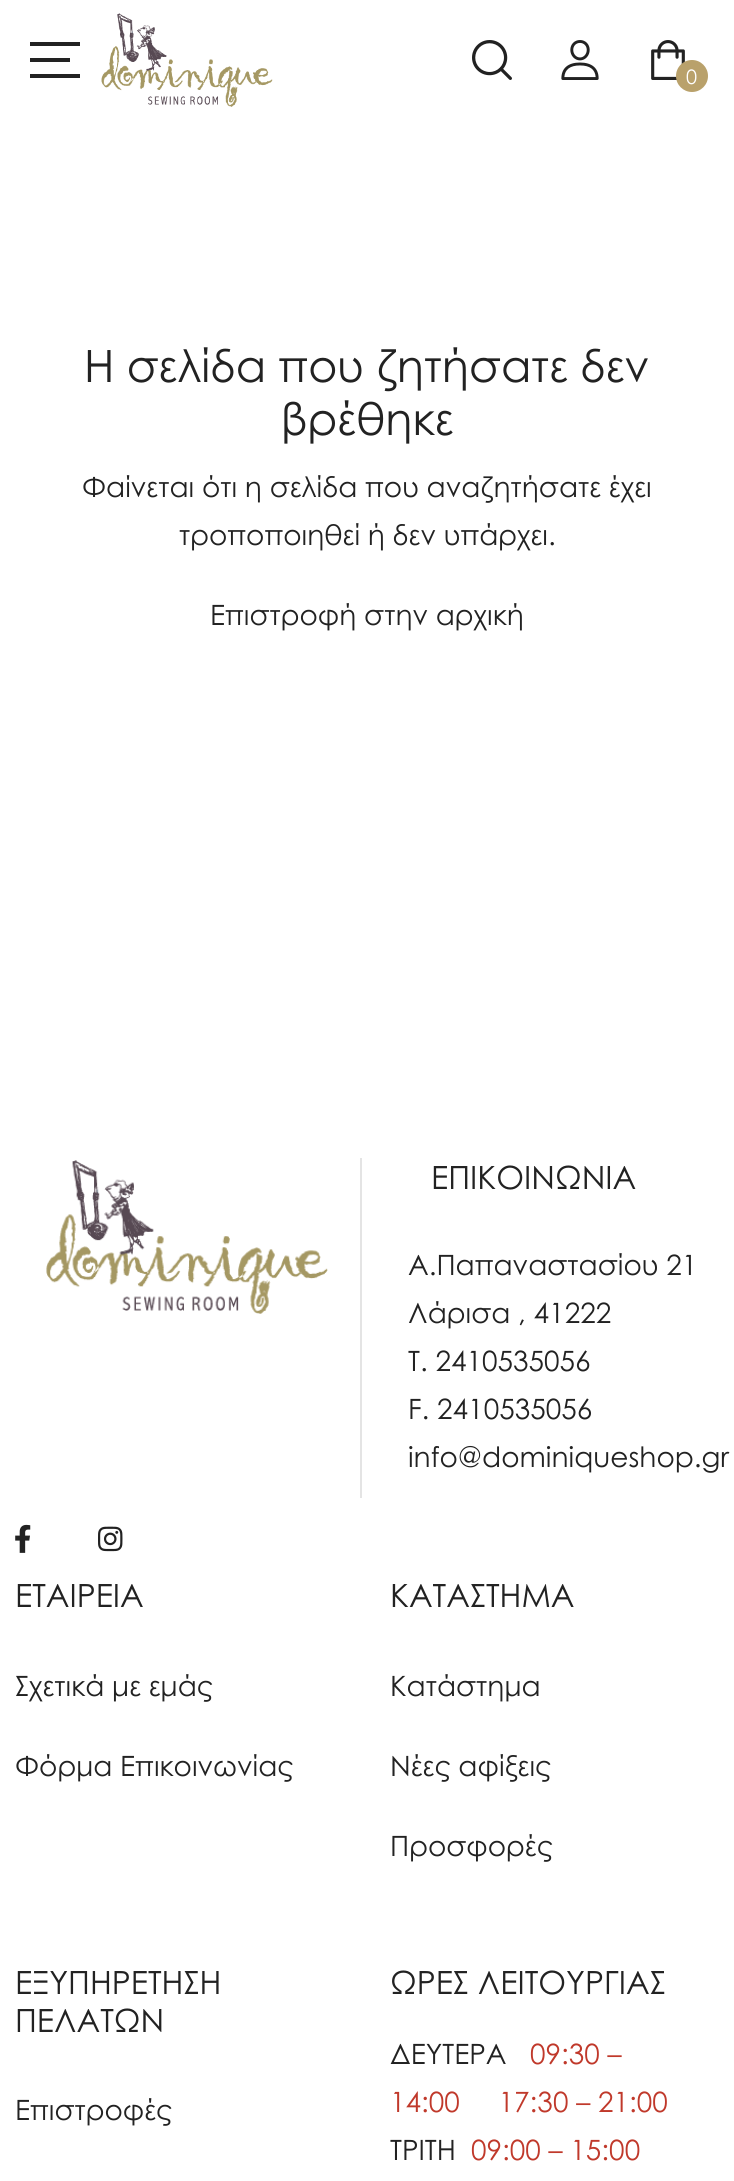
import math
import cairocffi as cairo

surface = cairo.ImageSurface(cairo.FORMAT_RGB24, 734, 2181)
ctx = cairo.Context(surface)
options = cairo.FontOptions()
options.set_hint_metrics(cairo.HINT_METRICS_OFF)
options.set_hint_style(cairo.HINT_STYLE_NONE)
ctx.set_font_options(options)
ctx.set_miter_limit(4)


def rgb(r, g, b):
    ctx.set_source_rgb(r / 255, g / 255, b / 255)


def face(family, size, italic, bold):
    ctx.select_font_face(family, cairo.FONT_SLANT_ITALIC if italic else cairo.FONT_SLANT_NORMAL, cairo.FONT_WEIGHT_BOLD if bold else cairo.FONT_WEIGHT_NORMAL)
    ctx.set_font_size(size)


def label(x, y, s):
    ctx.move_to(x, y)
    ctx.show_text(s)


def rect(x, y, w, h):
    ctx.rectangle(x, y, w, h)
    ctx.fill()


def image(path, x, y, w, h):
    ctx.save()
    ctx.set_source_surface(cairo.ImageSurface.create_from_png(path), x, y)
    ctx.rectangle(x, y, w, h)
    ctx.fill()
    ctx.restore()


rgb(255, 255, 255)
ctx.paint()
rgb(34, 34, 34)
rect(30, 42, 50, 4)
rect(30, 58, 40, 4)
rect(30, 74, 50, 4)
image('image0.png', 101, 13, 172, 94)
image('image1.png', 472, 40, 40, 40)
image('image2.png', 561, 40, 38, 40)
image('image3.png', 651, 40, 34, 40)
rgb(185, 161, 107)
ctx.arc(692, 76, 16, 0, 2 * math.pi)
ctx.fill()
face('Century Gothic', 20, 0, 0)
rgb(255, 255, 255)
label(686, 84, '0')
face('Century Gothic', 44.5, 0, 0)
rgb(34, 34, 34)
label(84, 382, 'Η σελίδα που ζητήσατε δεν')
label(281, 435, 'βρέθηκε')
face('Century Gothic', 28, 0, 0)
label(82, 497, 'Φαίνεται ότι η σελίδα που αναζητήσατε έχει')
label(179, 545, 'τροποποιηθεί ή δεν υπάρχει.')
label(210, 625, 'Επιστροφή στην αρχική')
image('image4.png', 46, 1160, 282, 154)
rgb(228, 228, 228)
rect(360, 1158, 2, 340)
face('Century Gothic', 32, 0, 0)
rgb(34, 34, 34)
label(431, 1189, 'ΕΠΙΚΟΙΝΩΝΙΑ')
face('Century Gothic', 28, 0, 0)
label(408, 1275, 'Α.Παπαναστασίου 21')
label(408, 1323, 'Λάρισα , 41222')
label(408, 1371, 'T. 2410535056')
label(408, 1419, 'F. 2410535056')
label(408, 1467, 'info@dominiqueshop.gr')
image('image5.png', 15, 1524, 16, 29)
image('image6.png', 98, 1526, 25, 26)
face('Century Gothic', 32, 0, 0)
label(15, 1607, 'ΕΤΑΙΡΕΙΑ')
face('Century Gothic', 28, 0, 0)
label(15, 1696, 'Σχετικά με εμάς')
label(15, 1776, 'Φόρμα Επικοινωνίας')
face('Century Gothic', 32, 0, 0)
label(390, 1607, 'ΚΑΤΑΣΤΗΜΑ')
face('Century Gothic', 28, 0, 0)
label(390, 1696, 'Κατάστημα')
label(390, 1776, 'Νέες αφίξεις')
label(390, 1856, 'Προσφορές')
face('Century Gothic', 32, 0, 0)
label(15, 1994, 'ΕΞΥΠΗΡΕΤΗΣΗ')
label(15, 2032, 'ΠΕΛΑΤΩΝ')
face('Century Gothic', 28, 0, 0)
label(15, 2120, 'Επιστροφές')
face('Century Gothic', 32, 0, 0)
label(390, 1994, 'ΩΡΕΣ ΛΕΙΤΟΥΡΓΙΑΣ')
face('Century Gothic', 28, 0, 0)
label(390, 2064, 'ΔΕΥΤΕΡΑ')
rgb(192, 57, 43)
label(530, 2064, '09:30 –')
label(390, 2112, '14:00     17:30 – 21:00')
rgb(34, 34, 34)
label(390, 2160, 'ΤΡΙΤΗ')
rgb(192, 57, 43)
label(471, 2160, '09:00 – 15:00')
surface.write_to_png('render.png')
